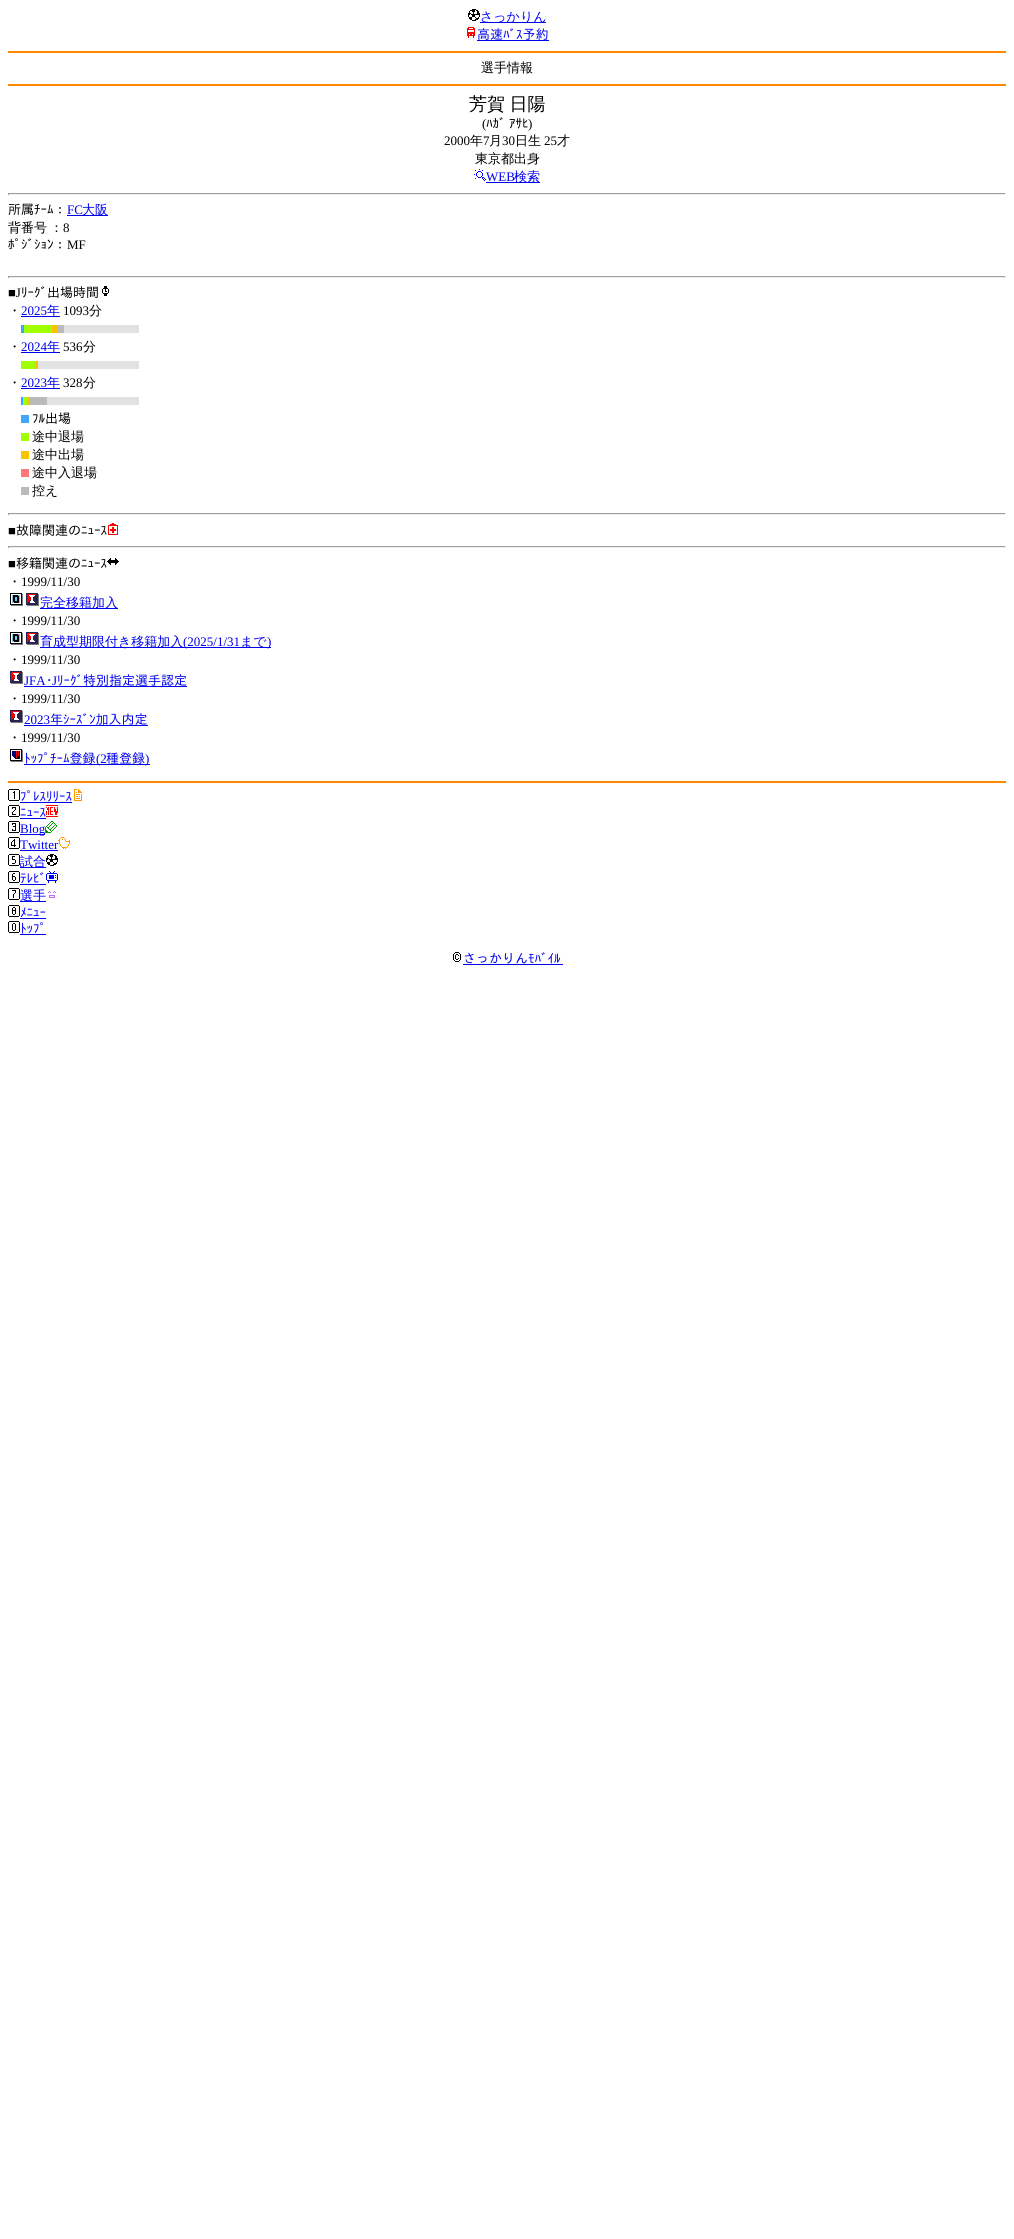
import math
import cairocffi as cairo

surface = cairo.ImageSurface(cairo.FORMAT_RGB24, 1014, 2239)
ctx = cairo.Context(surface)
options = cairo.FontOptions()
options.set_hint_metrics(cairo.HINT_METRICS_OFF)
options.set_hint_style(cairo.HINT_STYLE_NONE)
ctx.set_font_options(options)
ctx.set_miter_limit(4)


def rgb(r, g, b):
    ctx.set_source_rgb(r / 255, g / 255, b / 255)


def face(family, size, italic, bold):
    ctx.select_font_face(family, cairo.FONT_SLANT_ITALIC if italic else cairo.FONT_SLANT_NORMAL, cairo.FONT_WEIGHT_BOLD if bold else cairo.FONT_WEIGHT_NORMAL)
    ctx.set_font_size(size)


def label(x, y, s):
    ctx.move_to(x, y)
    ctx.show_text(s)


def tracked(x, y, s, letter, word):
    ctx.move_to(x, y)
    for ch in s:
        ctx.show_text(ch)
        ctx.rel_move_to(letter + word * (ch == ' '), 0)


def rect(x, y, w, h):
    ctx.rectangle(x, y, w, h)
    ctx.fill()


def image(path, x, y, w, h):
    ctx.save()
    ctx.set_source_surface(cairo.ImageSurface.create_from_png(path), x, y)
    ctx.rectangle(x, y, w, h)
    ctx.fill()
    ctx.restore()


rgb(255, 255, 255)
ctx.paint()
image('image0.png', 468, 9, 12, 12)
rgb(0, 0, 238)
rect(480, 22, 66, 1)
face('WenQuanYi Zen Hei Medium', 13, 0, 0)
rgb(0, 0, 255)
label(480, 21, 'さっかりん')
image('image1.png', 467, 27, 8, 11)
face('IPAGothic', 13, 0, 0)
rgb(0, 0, 238)
label(477, 39, '高速ﾊﾞｽ予約')
rect(477, 40, 72, 1)
rgb(255, 136, 0)
rect(8, 51, 998, 2)
face('WenQuanYi Zen Hei Medium', 13, 0, 0)
rgb(0, 0, 0)
label(481, 72, '選手情報')
rgb(255, 136, 0)
rect(8, 84, 998, 2)
face('WenQuanYi Zen Hei Medium', 18, 0, 0)
rgb(0, 0, 0)
tracked(469, 110, '芳賀 日陽', 0, -1)
face('Liberation Serif', 13, 0, 0)
label(482, 128, '(')
face('IPAGothic', 13, 0, 0)
tracked(486, 128, 'ﾊｶﾞ ｱｻﾋ', 0, -3)
face('Liberation Serif', 13, 0, 0)
label(528, 128, ')')
label(444, 145, '2000')
face('WenQuanYi Zen Hei Medium', 13, 0, 0)
label(470, 145, '年')
face('Liberation Serif', 13, 0, 0)
label(483, 145, '7')
face('WenQuanYi Zen Hei Medium', 13, 0, 0)
label(489, 145, '月')
face('Liberation Serif', 13, 0, 0)
label(502, 145, '30')
face('WenQuanYi Zen Hei Medium', 13, 0, 0)
label(515, 145, '日生')
face('Liberation Serif', 13, 0, 0)
label(544, 145, '25')
face('WenQuanYi Zen Hei Medium', 13, 0, 0)
label(557, 145, '才')
label(475, 163, '東京都出身')
image('image2.png', 474, 169, 12, 12)
face('Liberation Serif', 13, 0, 0)
rgb(0, 0, 238)
label(486, 181, 'WEB')
rect(486, 182, 54, 1)
face('WenQuanYi Zen Hei Medium', 13, 0, 0)
label(514, 181, '検索')
rgb(159, 159, 159)
rect(8, 193, 998, 1)
rgb(238, 238, 238)
rect(1005, 193, 1, 2)
rect(8, 194, 998, 1)
rgb(159, 159, 159)
rect(8, 193, 1, 2)
face('IPAGothic', 13, 0, 0)
rgb(0, 0, 0)
label(8, 214, '所属ﾁｰﾑ：')
face('Liberation Serif', 13, 0, 0)
rgb(0, 0, 238)
label(67, 214, 'FC')
rect(67, 215, 41, 1)
face('WenQuanYi Zen Hei Medium', 13, 0, 0)
label(82, 214, '大阪')
rgb(0, 0, 0)
tracked(8, 232, '背番号 ：', 0, -1)
face('Liberation Serif', 13, 0, 0)
label(63, 232, '8')
face('IPAGothic', 13, 0, 0)
label(8, 249, 'ﾎﾟｼﾞｼｮﾝ：')
face('Liberation Serif', 13, 0, 0)
label(67, 249, 'MF')
rgb(159, 159, 159)
rect(8, 276, 998, 1)
rgb(238, 238, 238)
rect(1005, 276, 1, 2)
rect(8, 277, 998, 1)
rgb(159, 159, 159)
rect(8, 276, 1, 2)
rgb(0, 0, 0)
label(8, 297, '■J')
face('IPAGothic', 13, 0, 0)
label(21, 297, 'ﾘｰｸﾞ出場時間')
image('image3.png', 102, 286, 7, 10)
face('WenQuanYi Zen Hei Medium', 13, 0, 0)
label(8, 315, '・')
face('Liberation Serif', 13, 0, 0)
rgb(0, 0, 238)
label(21, 315, '2025')
rect(21, 316, 39, 1)
face('WenQuanYi Zen Hei Medium', 13, 0, 0)
label(47, 315, '年')
face('Liberation Serif', 13, 0, 0)
rgb(0, 0, 0)
label(63, 315, '1093')
face('WenQuanYi Zen Hei Medium', 13, 0, 0)
label(89, 315, '分')
rgb(65, 165, 255)
rect(21, 325, 3, 8)
rgb(160, 255, 0)
rect(24, 325, 28, 8)
rgb(248, 196, 0)
rect(52, 325, 6, 8)
rgb(186, 186, 186)
rect(58, 325, 6, 8)
rgb(226, 226, 226)
rect(64, 325, 75, 8)
rgb(0, 0, 0)
label(8, 351, '・')
face('Liberation Serif', 13, 0, 0)
rgb(0, 0, 238)
label(21, 351, '2024')
rect(21, 352, 39, 1)
face('WenQuanYi Zen Hei Medium', 13, 0, 0)
label(47, 351, '年')
face('Liberation Serif', 13, 0, 0)
rgb(0, 0, 0)
label(63, 351, '536')
face('WenQuanYi Zen Hei Medium', 13, 0, 0)
label(83, 351, '分')
rgb(160, 255, 0)
rect(21, 361, 14, 8)
rgb(248, 196, 0)
rect(35, 361, 3, 8)
rgb(226, 226, 226)
rect(38, 361, 101, 8)
rgb(0, 0, 0)
label(8, 387, '・')
face('Liberation Serif', 13, 0, 0)
rgb(0, 0, 238)
label(21, 387, '2023')
rect(21, 388, 39, 1)
face('WenQuanYi Zen Hei Medium', 13, 0, 0)
label(47, 387, '年')
face('Liberation Serif', 13, 0, 0)
rgb(0, 0, 0)
label(63, 387, '328')
face('WenQuanYi Zen Hei Medium', 13, 0, 0)
label(83, 387, '分')
rgb(65, 165, 255)
rect(21, 397, 2, 8)
rgb(160, 255, 0)
rect(23, 397, 4, 8)
rgb(248, 196, 0)
rect(27, 397, 3, 8)
rgb(186, 186, 186)
rect(30, 397, 17, 8)
rgb(226, 226, 226)
rect(47, 397, 92, 8)
rgb(65, 165, 255)
rect(21, 415, 8, 8)
face('IPAGothic', 13, 0, 0)
rgb(0, 0, 0)
label(32, 423, 'ﾌﾙ出場')
rgb(160, 255, 0)
rect(21, 433, 8, 8)
face('WenQuanYi Zen Hei Medium', 13, 0, 0)
rgb(0, 0, 0)
label(32, 441, '途中退場')
rgb(248, 196, 0)
rect(21, 451, 8, 8)
rgb(0, 0, 0)
label(32, 459, '途中出場')
rgb(255, 121, 120)
rect(21, 469, 8, 8)
rgb(0, 0, 0)
label(32, 477, '途中入退場')
rgb(186, 186, 186)
rect(21, 487, 8, 8)
rgb(0, 0, 0)
label(32, 495, '控え')
rgb(159, 159, 159)
rect(8, 513, 998, 1)
rgb(238, 238, 238)
rect(1005, 513, 1, 2)
rect(8, 514, 998, 1)
rgb(159, 159, 159)
rect(8, 513, 1, 2)
face('Liberation Serif', 13, 0, 0)
rgb(0, 0, 0)
label(8, 535, '■')
face('IPAGothic', 13, 0, 0)
label(16, 535, '故障関連のﾆｭｰｽ')
image('image4.png', 108, 523, 10, 12)
rgb(159, 159, 159)
rect(8, 546, 998, 1)
rgb(238, 238, 238)
rect(1005, 546, 1, 2)
rect(8, 547, 998, 1)
rgb(159, 159, 159)
rect(8, 546, 1, 2)
face('Liberation Serif', 13, 0, 0)
rgb(0, 0, 0)
label(8, 568, '■')
face('IPAGothic', 13, 0, 0)
label(16, 568, '移籍関連のﾆｭｰｽ')
image('image5.png', 107, 558, 12, 7)
face('WenQuanYi Zen Hei Medium', 13, 0, 0)
label(8, 586, '・')
face('Liberation Serif', 13, 0, 0)
label(21, 586, '1999/11/30')
image('image6.png', 10, 593, 13, 13)
image('image7.png', 26, 593, 13, 13)
rgb(0, 0, 238)
rect(40, 608, 78, 1)
face('WenQuanYi Zen Hei Medium', 13, 0, 0)
label(40, 607, '完全移籍加入')
rgb(0, 0, 0)
label(8, 625, '・')
face('Liberation Serif', 13, 0, 0)
label(21, 625, '1999/11/30')
image('image6.png', 10, 632, 13, 13)
image('image7.png', 26, 632, 13, 13)
rgb(0, 0, 238)
rect(40, 647, 231, 1)
face('WenQuanYi Zen Hei Medium', 13, 0, 0)
label(40, 646, '育成型期限付き移籍加入')
face('Liberation Serif', 13, 0, 0)
label(183, 646, '(2025/1/31')
face('WenQuanYi Zen Hei Medium', 13, 0, 0)
label(240, 646, 'まで')
face('Liberation Serif', 13, 0, 0)
label(267, 646, ')')
face('WenQuanYi Zen Hei Medium', 13, 0, 0)
rgb(0, 0, 0)
label(8, 664, '・')
face('Liberation Serif', 13, 0, 0)
label(21, 664, '1999/11/30')
image('image7.png', 10, 671, 13, 13)
rgb(0, 0, 238)
label(24, 685, 'JFA')
rect(24, 686, 163, 1)
face('IPAGothic', 13, 0, 0)
label(46, 685, '･')
face('Liberation Serif', 13, 0, 0)
label(52, 685, 'J')
face('IPAGothic', 13, 0, 0)
label(57, 685, 'ﾘｰｸﾞ特別指定選手認定')
face('WenQuanYi Zen Hei Medium', 13, 0, 0)
rgb(0, 0, 0)
label(8, 703, '・')
face('Liberation Serif', 13, 0, 0)
label(21, 703, '1999/11/30')
image('image7.png', 10, 710, 13, 13)
rgb(0, 0, 238)
label(24, 724, '2023')
rect(24, 725, 124, 1)
face('IPAGothic', 13, 0, 0)
label(50, 724, '年ｼｰｽﾞﾝ加入内定')
face('WenQuanYi Zen Hei Medium', 13, 0, 0)
rgb(0, 0, 0)
label(8, 742, '・')
face('Liberation Serif', 13, 0, 0)
label(21, 742, '1999/11/30')
image('image8.png', 10, 749, 13, 13)
face('IPAGothic', 13, 0, 0)
rgb(0, 0, 238)
label(24, 763, 'ﾄｯﾌﾟﾁｰﾑ登録')
rect(24, 764, 126, 1)
face('Liberation Serif', 13, 0, 0)
label(96, 763, '(2')
face('IPAGothic', 13, 0, 0)
label(106, 763, '種登録')
face('Liberation Serif', 13, 0, 0)
label(145, 763, ')')
rgb(255, 136, 0)
rect(8, 781, 998, 2)
image('image9.png', 8, 789, 12, 12)
face('IPAGothic', 13, 0, 0)
rgb(0, 0, 255)
label(20, 801, 'ﾌﾟﾚｽﾘﾘｰｽ')
rgb(0, 0, 238)
rect(20, 802, 52, 1)
image('image10.png', 74, 789, 8, 12)
image('image11.png', 8, 805, 12, 12)
rgb(0, 0, 255)
label(20, 817, 'ﾆｭｰｽ')
rgb(0, 0, 238)
rect(20, 818, 26, 1)
image('image12.png', 46, 805, 12, 12)
image('image13.png', 8, 821, 12, 12)
rect(20, 834, 25, 1)
face('Liberation Serif', 13, 0, 0)
rgb(0, 0, 255)
label(20, 833, 'Blog')
image('image14.png', 45, 821, 12, 12)
image('image15.png', 8, 837, 12, 12)
label(20, 849, 'Twitter')
rgb(0, 0, 238)
rect(20, 850, 38, 1)
image('image16.png', 58, 837, 12, 12)
image('image17.png', 8, 854, 12, 12)
rect(20, 867, 26, 1)
face('WenQuanYi Zen Hei Medium', 13, 0, 0)
rgb(0, 0, 255)
label(20, 866, '試合')
image('image0.png', 46, 854, 12, 12)
image('image18.png', 8, 871, 12, 12)
face('IPAGothic', 13, 0, 0)
label(20, 883, 'ﾃﾚﾋﾞ')
rgb(0, 0, 238)
rect(20, 884, 26, 1)
image('image19.png', 46, 871, 12, 12)
image('image20.png', 8, 888, 12, 12)
rect(20, 901, 26, 1)
face('WenQuanYi Zen Hei Medium', 13, 0, 0)
rgb(0, 0, 255)
label(20, 900, '選手')
image('image21.png', 48, 891, 8, 7)
image('image22.png', 8, 905, 12, 12)
face('IPAGothic', 13, 0, 0)
label(20, 917, 'ﾒﾆｭｰ')
rgb(0, 0, 238)
rect(20, 918, 26, 1)
image('image23.png', 8, 921, 12, 12)
rgb(0, 0, 255)
label(20, 933, 'ﾄｯﾌﾟ')
rgb(0, 0, 238)
rect(20, 934, 26, 1)
image('image24.png', 453, 952, 8, 10)
label(463, 963, 'さっかりんﾓﾊﾞｲﾙ')
rect(463, 964, 100, 1)
surface.write_to_png('render.png')
